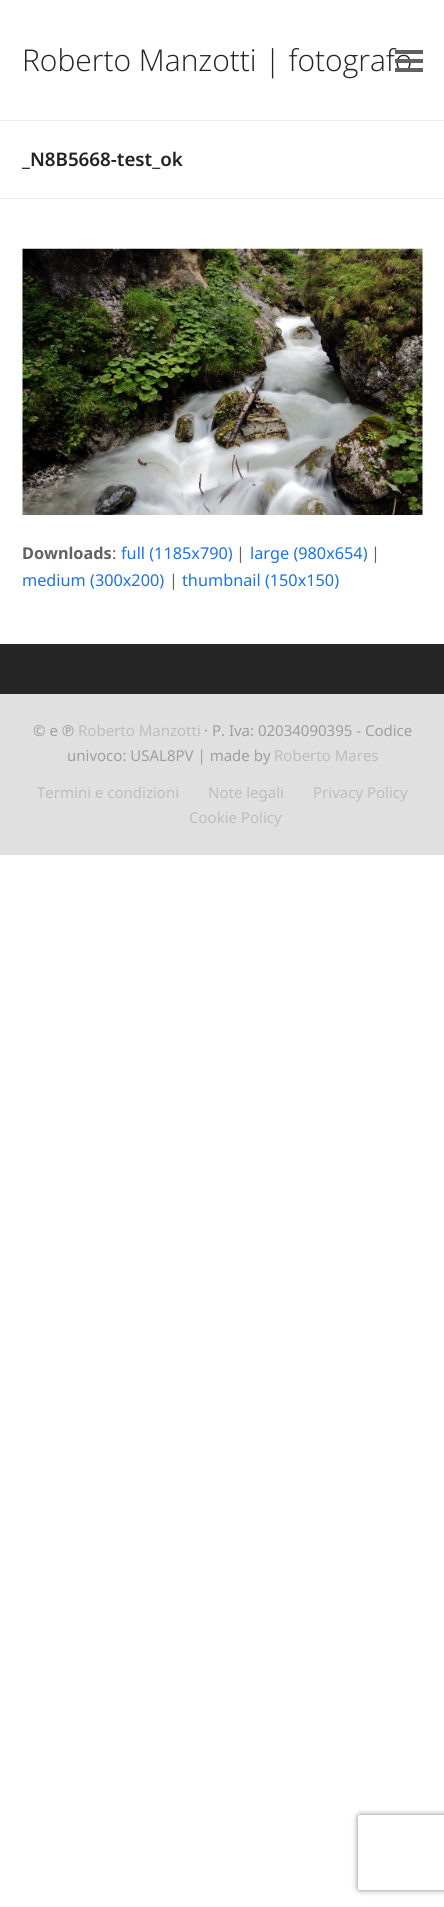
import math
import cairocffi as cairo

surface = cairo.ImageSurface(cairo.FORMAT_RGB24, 444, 1907)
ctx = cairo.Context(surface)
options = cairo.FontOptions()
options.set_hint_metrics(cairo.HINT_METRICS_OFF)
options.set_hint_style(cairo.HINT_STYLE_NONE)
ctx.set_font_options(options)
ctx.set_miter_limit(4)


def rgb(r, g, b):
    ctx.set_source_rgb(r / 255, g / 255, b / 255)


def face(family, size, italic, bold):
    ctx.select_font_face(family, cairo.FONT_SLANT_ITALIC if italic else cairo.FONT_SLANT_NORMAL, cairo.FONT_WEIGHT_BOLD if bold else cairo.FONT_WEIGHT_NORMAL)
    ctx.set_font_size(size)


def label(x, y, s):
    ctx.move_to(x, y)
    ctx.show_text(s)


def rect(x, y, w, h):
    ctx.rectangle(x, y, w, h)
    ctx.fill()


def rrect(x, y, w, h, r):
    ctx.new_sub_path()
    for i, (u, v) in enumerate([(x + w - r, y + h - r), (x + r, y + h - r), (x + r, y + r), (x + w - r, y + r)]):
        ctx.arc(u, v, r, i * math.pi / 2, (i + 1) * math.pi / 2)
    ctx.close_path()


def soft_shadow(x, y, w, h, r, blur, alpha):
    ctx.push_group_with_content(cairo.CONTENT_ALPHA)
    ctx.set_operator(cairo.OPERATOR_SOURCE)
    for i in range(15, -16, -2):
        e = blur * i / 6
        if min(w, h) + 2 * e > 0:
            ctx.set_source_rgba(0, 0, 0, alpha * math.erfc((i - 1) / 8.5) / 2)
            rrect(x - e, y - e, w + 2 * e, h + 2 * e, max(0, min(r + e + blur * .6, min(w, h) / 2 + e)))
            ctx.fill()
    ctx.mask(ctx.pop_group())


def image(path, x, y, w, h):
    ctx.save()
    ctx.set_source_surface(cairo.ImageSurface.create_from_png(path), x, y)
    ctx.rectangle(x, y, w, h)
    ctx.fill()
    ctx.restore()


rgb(255, 255, 255)
ctx.paint()
face('Open Sans Light', 30, 0, 0)
rgb(34, 34, 34)
label(22, 71, 'Roberto Manzotti | fotografo')
rgb(97, 97, 97)
rect(395, 59, 28, 4)
rect(395, 50, 28, 4)
rect(395, 68, 28, 4)
rgb(238, 238, 238)
rect(0, 120, 444, 1)
rect(0, 198, 444, 1)
face('Noto Sans SemiBold', 18.75, 0, 0)
rgb(34, 34, 34)
label(22, 166, '_N8B5668-test_ok')
image('image0.png', 22, 248, 401, 267)
face('Noto Sans', 16.25, 0, 1)
rgb(97, 97, 97)
label(22, 559, 'Downloads')
face('Noto Sans', 16.25, 0, 0)
label(112, 559, ':')
rgb(26, 115, 232)
label(121, 559, 'full (1185x790)')
rgb(97, 97, 97)
label(236, 559, '|')
rgb(26, 115, 232)
label(250, 559, 'large (980x654)')
rgb(97, 97, 97)
label(371, 559, '|')
rgb(26, 115, 232)
label(22, 586, 'medium (300x200)')
rgb(97, 97, 97)
label(169, 586, '|')
rgb(26, 115, 232)
label(182, 586, 'thumbnail (150x150)')
rgb(38, 38, 38)
rect(0, 644, 444, 50)
rgb(224, 224, 224)
rect(0, 694, 444, 161)
face('Noto Sans', 15, 0, 0)
rgb(158, 158, 158)
label(33, 736, '© e ℗')
rgb(189, 189, 189)
label(78, 736, 'Roberto Manzotti')
rgb(158, 158, 158)
label(204, 736, '· P. Iva: 02034090395 - Codice')
label(67, 761, 'univoco: USAL8PV | made by')
rgb(189, 189, 189)
label(274, 761, 'Roberto Mares')
label(37, 798, 'Termini e condizioni')
label(208, 798, 'Note legali')
label(313, 798, 'Privacy Policy')
label(189, 823, 'Cookie Policy')
ctx.save()
ctx.set_fill_rule(cairo.FILL_RULE_EVEN_ODD)
ctx.new_path()
ctx.move_to(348, 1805)
ctx.line_to(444, 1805)
ctx.line_to(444, 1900)
ctx.line_to(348, 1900)
ctx.close_path()
ctx.move_to(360.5, 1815)
ctx.line_to(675.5, 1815)
ctx.curve_to(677, 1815, 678, 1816, 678, 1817.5)
ctx.line_to(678, 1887.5)
ctx.curve_to(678, 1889, 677, 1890, 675.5, 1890)
ctx.line_to(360.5, 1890)
ctx.curve_to(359, 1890, 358, 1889, 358, 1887.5)
ctx.line_to(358, 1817.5)
ctx.curve_to(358, 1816, 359, 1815, 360.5, 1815)
ctx.close_path()
ctx.clip()
rgb(128, 128, 128)
soft_shadow(358, 1815, 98, 75, 2.5, 3, 1)
ctx.restore()
surface.write_to_png('render.png')
